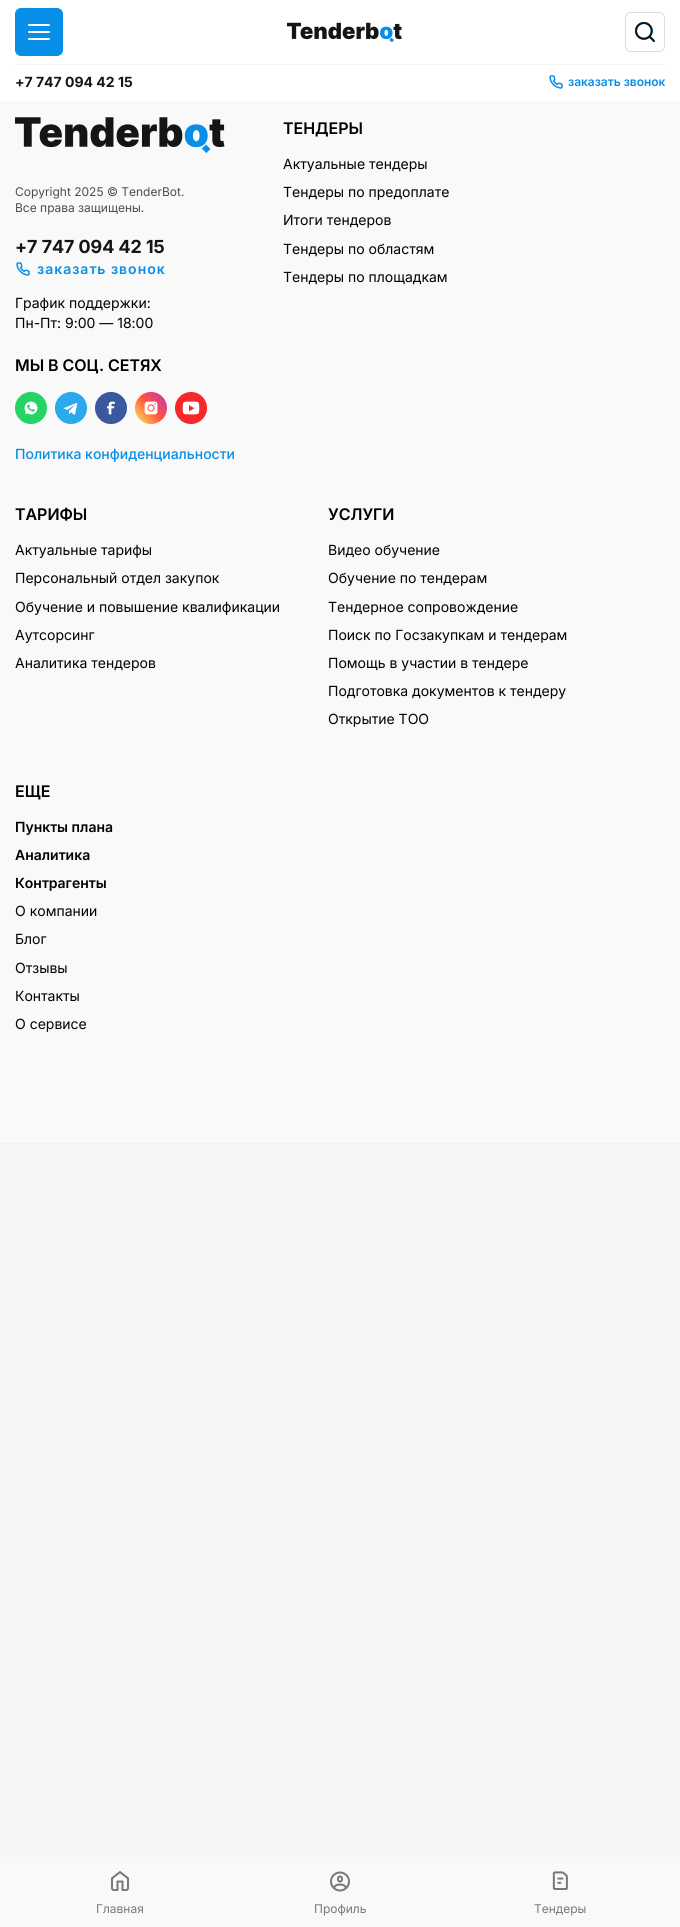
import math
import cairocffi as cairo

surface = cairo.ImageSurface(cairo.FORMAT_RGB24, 680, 1927)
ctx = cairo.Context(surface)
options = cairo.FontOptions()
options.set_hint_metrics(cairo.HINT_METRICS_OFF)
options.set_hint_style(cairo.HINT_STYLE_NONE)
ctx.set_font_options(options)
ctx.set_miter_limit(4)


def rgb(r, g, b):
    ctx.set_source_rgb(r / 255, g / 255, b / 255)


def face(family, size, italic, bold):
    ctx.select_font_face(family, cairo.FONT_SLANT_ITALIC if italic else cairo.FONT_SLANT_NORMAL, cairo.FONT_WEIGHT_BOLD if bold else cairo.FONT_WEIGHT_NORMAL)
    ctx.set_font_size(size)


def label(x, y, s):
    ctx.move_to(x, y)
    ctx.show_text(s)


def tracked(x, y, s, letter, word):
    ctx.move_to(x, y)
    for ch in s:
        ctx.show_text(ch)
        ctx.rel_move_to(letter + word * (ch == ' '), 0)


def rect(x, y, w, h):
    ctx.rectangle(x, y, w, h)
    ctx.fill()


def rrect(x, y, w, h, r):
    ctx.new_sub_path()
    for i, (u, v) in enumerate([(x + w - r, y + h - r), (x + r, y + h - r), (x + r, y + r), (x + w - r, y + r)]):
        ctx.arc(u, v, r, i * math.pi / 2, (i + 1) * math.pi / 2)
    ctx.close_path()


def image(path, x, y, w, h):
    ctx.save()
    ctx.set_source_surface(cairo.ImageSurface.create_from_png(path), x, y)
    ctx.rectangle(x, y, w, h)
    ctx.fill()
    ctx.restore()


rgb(246, 246, 246)
ctx.paint()
rgb(255, 255, 255)
rect(0, 0, 680, 101)
rgb(7, 142, 230)
rrect(15, 8, 48, 48, 6)
ctx.fill()
rgb(255, 255, 255)
rrect(28, 24, 22, 2, 1)
ctx.fill()
rrect(28, 31, 22, 2, 1)
ctx.fill()
rrect(28, 38, 22, 2, 1)
ctx.fill()
image('image0.png', 287, 22, 115, 20)
rrect(625.5, 12.5, 39, 39, 5.5)
rgb(221, 221, 221)
ctx.set_line_width(1)
ctx.stroke()
image('image1.png', 635, 22, 20, 20)
rgb(246, 246, 246)
rect(15, 64, 650, 1)
face('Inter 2', 14, 0, 1)
rgb(21, 21, 21)
label(15, 87, '+7 747 094 42 15')
image('image2.png', 549, 75, 14, 14)
face('Inter SemiBold', 12, 0, 0)
rgb(7, 142, 230)
label(568, 86, 'заказать звонок')
rgb(250, 249, 249)
rect(0, 1857, 680, 70)
image('image3.png', 111, 1871, 18, 20)
face('Inter', 12, 0, 0)
rgb(120, 120, 120)
label(96, 1913, 'Главная')
image('image4.png', 330, 1871, 20, 21)
label(314, 1913, 'Профиль')
image('image5.png', 552, 1871, 16, 19)
label(534, 1913, 'Тендеры')
rgb(241, 241, 241)
rect(0, 1143, 680, 1)
rgb(250, 249, 249)
rect(0, 101, 680, 1042)
image('image6.png', 15, 117, 210, 36)
rgb(77, 77, 77)
label(15, 196, 'Copyright 2025 © TenderBot.')
label(15, 212, 'Все права защищены.')
face('Inter', 18, 0, 1)
rgb(21, 21, 21)
label(15, 253, '+7 747 094 42 15')
image('image7.png', 16, 262, 14, 14)
face('Inter SemiBold', 14, 0, 0)
rgb(7, 142, 230)
tracked(37, 274, 'заказать звонок', 1, 0)
face('Inter', 14, 0, 0)
rgb(0, 0, 0)
label(15, 308, 'График поддержки:')
label(15, 328, 'Пн-Пт: 9:00 — 18:00')
face('Inter 2 SemiBold', 16, 0, 0)
label(15, 371, 'МЫ В СОЦ')
face('Inter SemiBold', 16, 0, 0)
label(99, 371, '.')
face('Inter 2 SemiBold', 16, 0, 0)
label(108, 371, 'СЕТЯХ')
image('image8.png', 15, 392, 32, 32)
image('image9.png', 55, 392, 32, 32)
image('image10.png', 95, 392, 32, 32)
image('image11.png', 135, 392, 32, 32)
image('image12.png', 175, 392, 32, 32)
face('Inter Medium', 14, 0, 0)
rgb(7, 142, 230)
label(15, 459, 'Политика конфиденциальности')
face('Inter 2 SemiBold', 16, 0, 0)
rgb(0, 0, 0)
label(283, 134, 'ТЕНДЕРЫ')
face('Inter', 14, 0, 0)
label(283, 169, 'Актуальные тендеры')
label(283, 197, 'Тендеры по предоплате')
label(283, 225, 'Итоги тендеров')
label(283, 254, 'Тендеры по областям')
label(283, 282, 'Тендеры по площадкам')
face('Inter 2 SemiBold', 16, 0, 0)
label(15, 520, 'ТАРИФЫ')
face('Inter', 14, 0, 0)
label(15, 555, 'Актуальные тарифы')
label(15, 583, 'Персональный отдел закупок')
label(15, 612, 'Обучение и повышение квалификации')
label(15, 640, 'Аутсорсинг')
label(15, 668, 'Аналитика тендеров')
face('Inter 2 SemiBold', 16, 0, 0)
label(328, 520, 'УСЛУГИ')
face('Inter', 14, 0, 0)
label(328, 555, 'Видео обучение')
label(328, 583, 'Обучение по тендерам')
label(328, 612, 'Тендерное сопровождение')
label(328, 640, 'Поиск по Госзакупкам и тендерам')
label(328, 668, 'Помощь в участии в тендере')
label(328, 696, 'Подготовка документов к тендеру')
label(328, 724, 'Открытие ТОО')
face('Inter 2 SemiBold', 16, 0, 0)
label(15, 797, 'ЕЩЕ')
face('Inter SemiBold', 14, 0, 0)
label(15, 832, 'Пункты плана')
label(15, 860, 'Аналитика')
label(15, 888, 'Контрагенты')
face('Inter', 14, 0, 0)
label(15, 916, 'О компании')
label(15, 944, 'Блог')
label(15, 973, 'Отзывы')
label(15, 1001, 'Контакты')
label(15, 1029, 'О сервисе')
surface.write_to_png('render.png')
